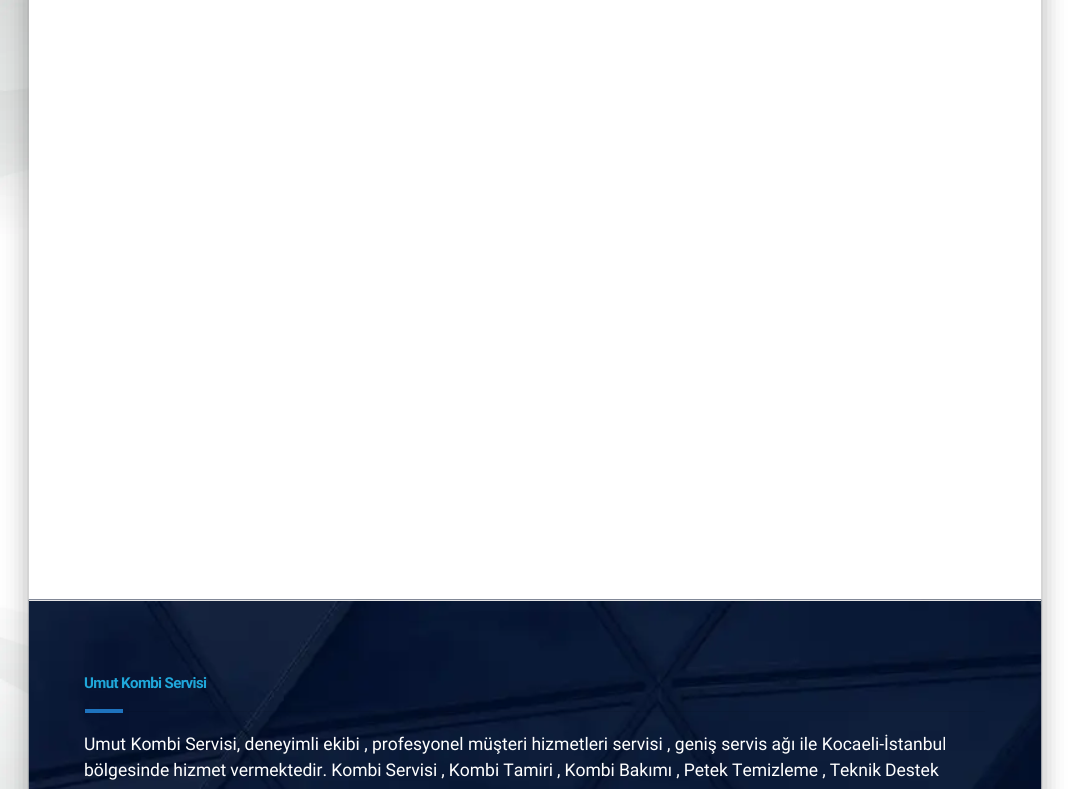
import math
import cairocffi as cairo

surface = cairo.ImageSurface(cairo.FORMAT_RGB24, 1068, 789)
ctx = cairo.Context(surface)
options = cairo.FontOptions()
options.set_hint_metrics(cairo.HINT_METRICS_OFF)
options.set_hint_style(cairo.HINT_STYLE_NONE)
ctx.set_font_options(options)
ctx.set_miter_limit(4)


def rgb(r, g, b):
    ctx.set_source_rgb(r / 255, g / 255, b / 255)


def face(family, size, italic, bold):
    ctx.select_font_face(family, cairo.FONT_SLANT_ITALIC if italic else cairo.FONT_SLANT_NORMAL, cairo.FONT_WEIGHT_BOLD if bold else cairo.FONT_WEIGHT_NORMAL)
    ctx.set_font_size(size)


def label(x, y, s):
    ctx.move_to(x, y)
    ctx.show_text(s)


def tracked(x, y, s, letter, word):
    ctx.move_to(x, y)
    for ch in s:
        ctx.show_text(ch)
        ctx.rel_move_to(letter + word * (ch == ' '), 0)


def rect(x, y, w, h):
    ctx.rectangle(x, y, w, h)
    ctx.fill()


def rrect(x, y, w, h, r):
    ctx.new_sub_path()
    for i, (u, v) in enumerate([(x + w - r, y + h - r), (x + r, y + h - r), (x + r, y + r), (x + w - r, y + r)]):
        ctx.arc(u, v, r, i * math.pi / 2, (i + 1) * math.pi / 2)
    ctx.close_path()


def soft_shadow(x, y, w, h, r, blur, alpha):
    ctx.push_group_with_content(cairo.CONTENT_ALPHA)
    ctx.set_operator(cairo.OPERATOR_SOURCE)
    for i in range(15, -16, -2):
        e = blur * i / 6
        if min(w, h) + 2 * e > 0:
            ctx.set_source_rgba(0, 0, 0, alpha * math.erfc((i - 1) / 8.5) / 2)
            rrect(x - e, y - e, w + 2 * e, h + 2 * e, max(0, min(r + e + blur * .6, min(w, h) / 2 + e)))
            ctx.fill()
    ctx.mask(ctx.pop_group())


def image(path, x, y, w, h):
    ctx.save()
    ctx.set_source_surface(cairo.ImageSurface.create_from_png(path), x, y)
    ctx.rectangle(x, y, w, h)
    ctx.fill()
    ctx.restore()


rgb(255, 255, 255)
ctx.paint()
image('image0.png', 0, 0, 29, 789)
rgb(0, 0, 0)
soft_shadow(29, -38, 1012, 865, 0, 12.5, 0.33)
rgb(255, 255, 255)
rect(29, 0, 1012, 600)
image('image1.png', 28, 599, 1014, 190)
rgb(230, 230, 230)
rect(29, 600, 1012, 1)
ctx.set_source_rgba(0, 0, 0, 0.08)
rect(123, 711, 862, 1)
face('Roboto', 15, 0, 1)
rgb(31, 167, 218)
tracked(84, 688, 'Umut Kombi Servisi', -0.6, 0)
rgb(30, 115, 190)
rect(85, 709, 38, 4)
face('Roboto', 17.5, 0, 0)
rgb(255, 255, 255)
label(84, 750, 'Umut Kombi Servisi, deneyimli ekibi , profesyonel müşteri hizmetleri servisi , geniş servis ağı ile Kocaeli-İstanbul')
tracked(84, 776, 'bölgesinde hizmet vermektedir. Kombi Servisi , Kombi Tamiri , Kombi Bakımı , Petek Temizleme , Teknik Destek', 0, -0.3)
surface.write_to_png('render.png')
